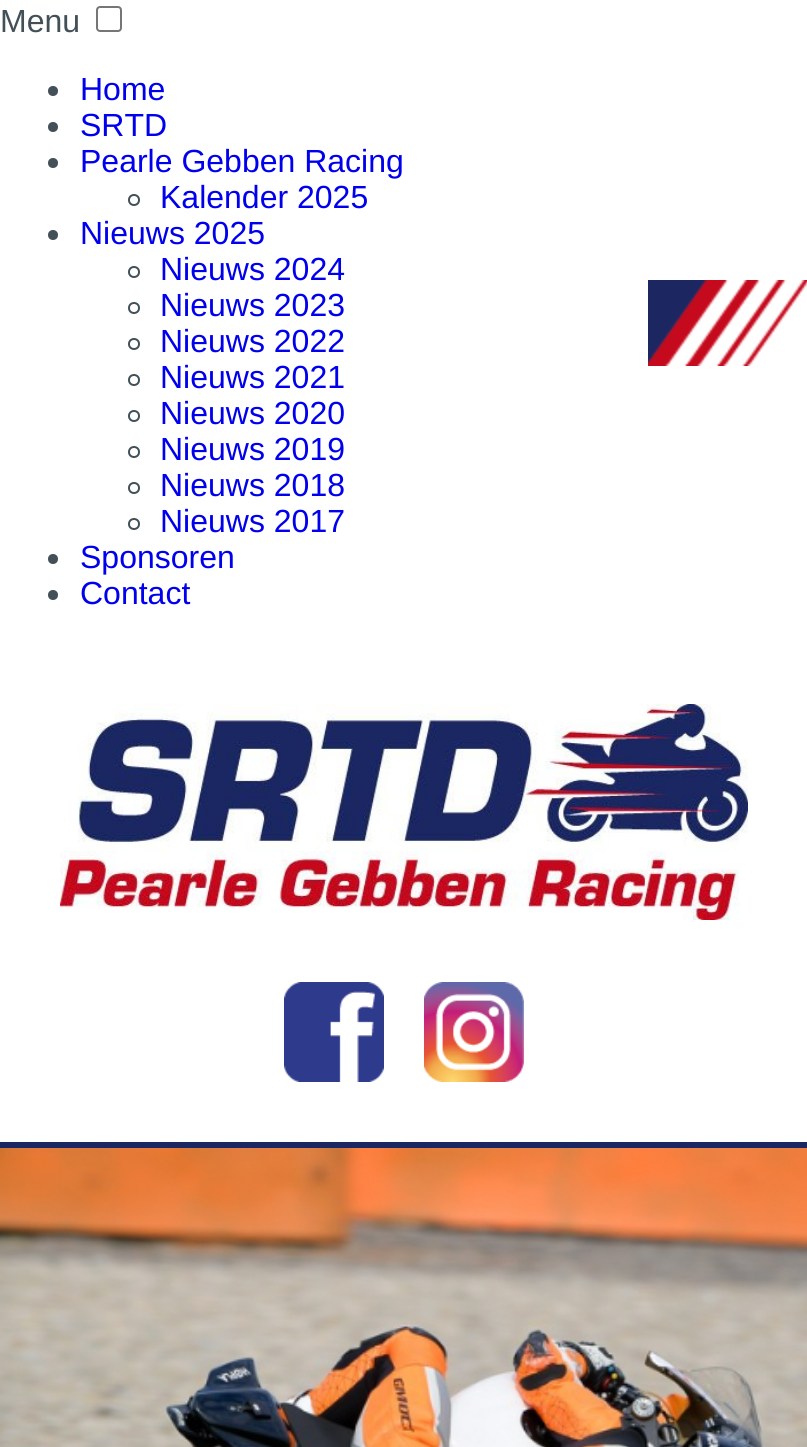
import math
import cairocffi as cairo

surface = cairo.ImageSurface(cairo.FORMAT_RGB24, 807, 1447)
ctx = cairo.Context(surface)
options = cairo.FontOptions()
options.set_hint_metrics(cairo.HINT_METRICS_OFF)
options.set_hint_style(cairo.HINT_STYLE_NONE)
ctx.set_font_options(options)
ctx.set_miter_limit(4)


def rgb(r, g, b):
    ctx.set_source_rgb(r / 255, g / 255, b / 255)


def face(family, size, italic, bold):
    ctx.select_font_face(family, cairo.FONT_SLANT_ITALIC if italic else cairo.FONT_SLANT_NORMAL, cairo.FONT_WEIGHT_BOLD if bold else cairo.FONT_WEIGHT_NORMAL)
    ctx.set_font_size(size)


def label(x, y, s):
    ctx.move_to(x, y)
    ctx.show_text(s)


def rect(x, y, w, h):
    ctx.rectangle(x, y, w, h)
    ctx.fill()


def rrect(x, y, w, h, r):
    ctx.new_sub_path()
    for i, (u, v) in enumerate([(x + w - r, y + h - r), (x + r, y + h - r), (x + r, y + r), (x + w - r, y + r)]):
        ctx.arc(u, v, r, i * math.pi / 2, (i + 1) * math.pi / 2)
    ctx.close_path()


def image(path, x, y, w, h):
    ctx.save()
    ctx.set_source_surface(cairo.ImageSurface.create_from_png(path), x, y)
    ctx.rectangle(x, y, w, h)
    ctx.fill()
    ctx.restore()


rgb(255, 255, 255)
ctx.paint()
rgb(27, 39, 98)
rect(0, 1142, 807, 6)
image('image0.png', 648, 280, 159, 86)
face('Liberation Sans', 32, 0, 0)
rgb(67, 80, 88)
label(0, 32, 'Menu')
rrect(97, 7, 24, 24, 3)
rgb(118, 118, 118)
ctx.stroke()
rgb(67, 80, 88)
ctx.arc(53, 91, 5, 0, 2 * math.pi)
ctx.fill()
rgb(0, 0, 238)
label(80, 100, 'Home')
rgb(67, 80, 88)
ctx.new_path()
ctx.arc(53, 127, 5, 0, 2 * math.pi)
ctx.fill()
rgb(0, 0, 238)
label(80, 136, 'SRTD')
rgb(67, 80, 88)
ctx.new_path()
ctx.arc(53, 163, 5, 0, 2 * math.pi)
ctx.fill()
rgb(0, 0, 238)
label(80, 172, 'Pearle Gebben Racing')
ctx.new_path()
ctx.arc(134, 200, 5, 0, 2 * math.pi)
rgb(67, 80, 88)
ctx.stroke()
rgb(0, 0, 238)
label(160, 208, 'Kalender 2025')
rgb(67, 80, 88)
ctx.new_path()
ctx.arc(53, 235, 5, 0, 2 * math.pi)
ctx.fill()
rgb(0, 0, 238)
label(80, 244, 'Nieuws 2025')
ctx.new_path()
ctx.arc(134, 272, 5, 0, 2 * math.pi)
rgb(67, 80, 88)
ctx.stroke()
rgb(0, 0, 238)
label(160, 280, 'Nieuws 2024')
ctx.new_path()
ctx.arc(134, 308, 5, 0, 2 * math.pi)
rgb(67, 80, 88)
ctx.stroke()
rgb(0, 0, 238)
label(160, 316, 'Nieuws 2023')
ctx.new_path()
ctx.arc(134, 344, 5, 0, 2 * math.pi)
rgb(67, 80, 88)
ctx.stroke()
rgb(0, 0, 238)
label(160, 352, 'Nieuws 2022')
ctx.new_path()
ctx.arc(134, 380, 5, 0, 2 * math.pi)
rgb(67, 80, 88)
ctx.stroke()
rgb(0, 0, 238)
label(160, 388, 'Nieuws 2021')
ctx.new_path()
ctx.arc(134, 416, 5, 0, 2 * math.pi)
rgb(67, 80, 88)
ctx.stroke()
rgb(0, 0, 238)
label(160, 424, 'Nieuws 2020')
ctx.new_path()
ctx.arc(134, 452, 5, 0, 2 * math.pi)
rgb(67, 80, 88)
ctx.stroke()
rgb(0, 0, 238)
label(160, 460, 'Nieuws 2019')
ctx.new_path()
ctx.arc(134, 488, 5, 0, 2 * math.pi)
rgb(67, 80, 88)
ctx.stroke()
rgb(0, 0, 238)
label(160, 496, 'Nieuws 2018')
ctx.new_path()
ctx.arc(134, 524, 5, 0, 2 * math.pi)
rgb(67, 80, 88)
ctx.stroke()
rgb(0, 0, 238)
label(160, 532, 'Nieuws 2017')
rgb(67, 80, 88)
ctx.new_path()
ctx.arc(53, 559, 5, 0, 2 * math.pi)
ctx.fill()
rgb(0, 0, 238)
label(80, 568, 'Sponsoren')
rgb(67, 80, 88)
ctx.new_path()
ctx.arc(53, 595, 5, 0, 2 * math.pi)
ctx.fill()
rgb(0, 0, 238)
label(80, 604, 'Contact')
image('image1.png', 60, 704, 688, 216)
image('image2.png', 284, 982, 100, 100)
image('image3.png', 424, 982, 100, 100)
image('image4.png', 0, 1148, 807, 299)
surface.write_to_png('render.png')
